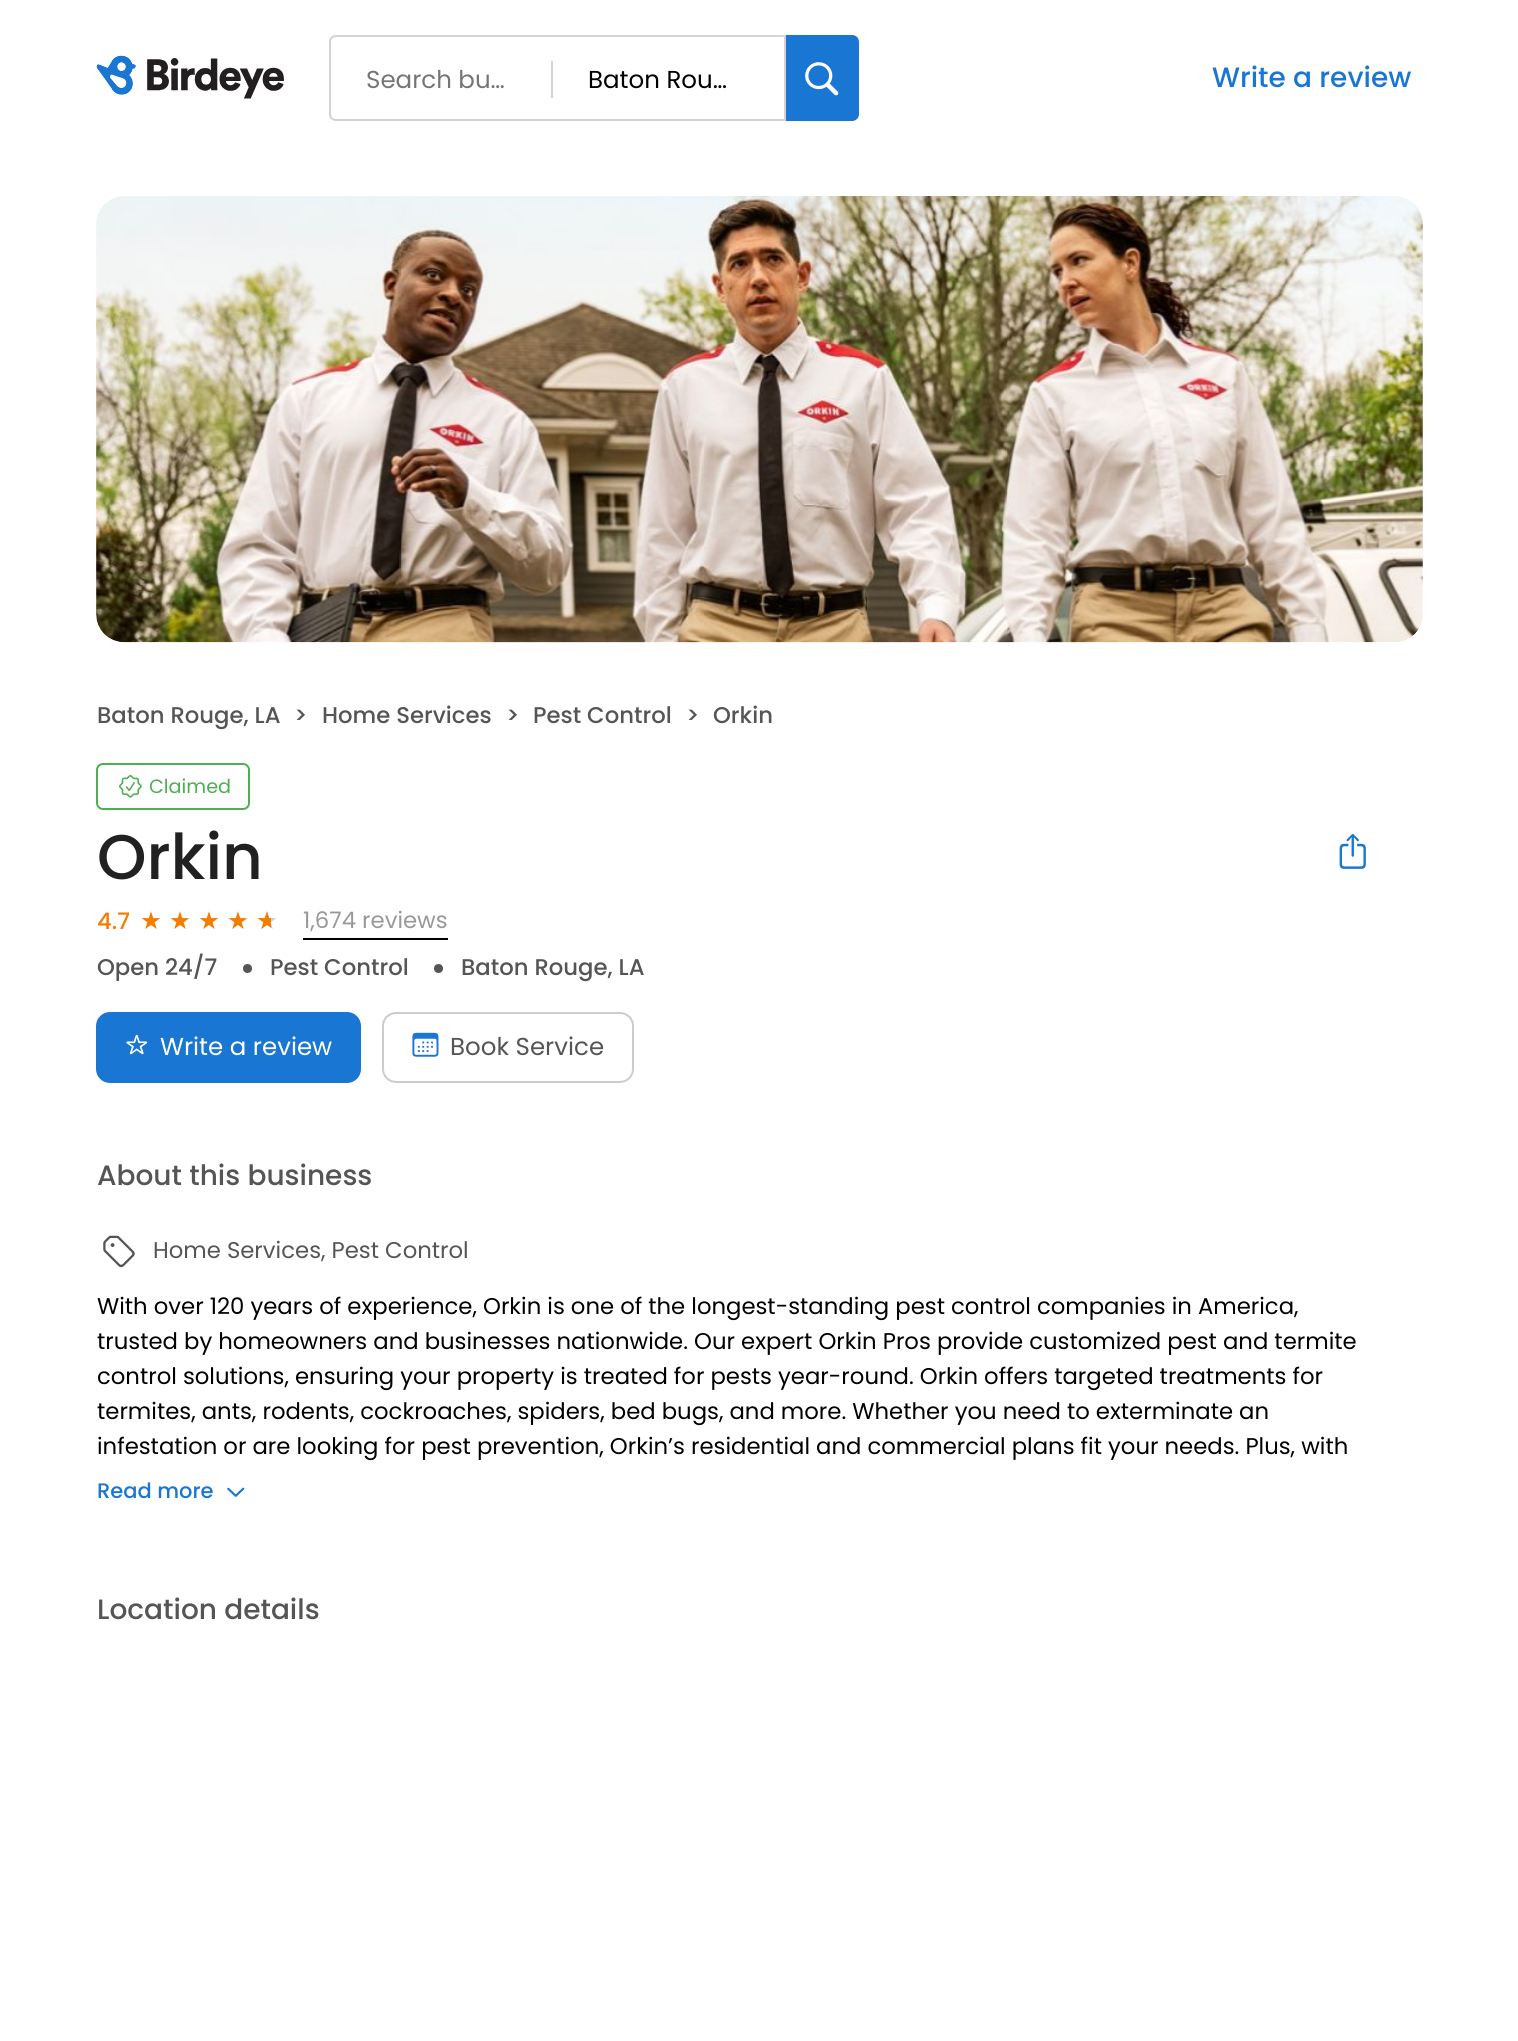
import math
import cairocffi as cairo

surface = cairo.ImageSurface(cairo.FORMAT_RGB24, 1518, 2041)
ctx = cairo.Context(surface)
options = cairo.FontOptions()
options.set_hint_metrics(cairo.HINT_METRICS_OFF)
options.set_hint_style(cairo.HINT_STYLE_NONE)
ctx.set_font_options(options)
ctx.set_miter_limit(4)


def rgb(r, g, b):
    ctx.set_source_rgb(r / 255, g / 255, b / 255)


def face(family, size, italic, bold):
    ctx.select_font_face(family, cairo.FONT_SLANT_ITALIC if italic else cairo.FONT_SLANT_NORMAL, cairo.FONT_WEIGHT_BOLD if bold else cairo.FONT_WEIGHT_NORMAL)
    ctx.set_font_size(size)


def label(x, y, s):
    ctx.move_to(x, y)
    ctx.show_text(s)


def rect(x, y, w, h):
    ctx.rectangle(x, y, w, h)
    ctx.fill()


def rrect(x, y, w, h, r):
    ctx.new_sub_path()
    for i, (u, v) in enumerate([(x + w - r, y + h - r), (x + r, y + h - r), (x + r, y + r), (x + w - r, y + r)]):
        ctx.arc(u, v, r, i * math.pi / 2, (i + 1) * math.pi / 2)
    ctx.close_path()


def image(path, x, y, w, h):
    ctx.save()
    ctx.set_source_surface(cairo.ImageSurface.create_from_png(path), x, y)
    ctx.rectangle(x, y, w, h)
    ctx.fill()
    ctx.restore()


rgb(255, 255, 255)
ctx.paint()
image('image0.png', 96, 55, 188, 44)
ctx.new_path()
ctx.move_to(336, 36)
ctx.line_to(785, 36)
ctx.line_to(785, 120)
ctx.line_to(336, 120)
ctx.curve_to(332.5, 120, 330, 117.5, 330, 114)
ctx.line_to(330, 42)
ctx.curve_to(330, 38.5, 332.5, 36, 336, 36)
ctx.close_path()
rgb(210, 210, 215)
ctx.stroke()
rect(551, 61, 2, 37)
face('Poppins', 24.5, 0, 0)
rgb(117, 117, 117)
label(366, 88, 'Search bu…')
rgb(0, 0, 0)
label(588, 88, 'Baton Rou…')
rgb(25, 118, 210)
ctx.new_path()
ctx.move_to(786, 35)
ctx.line_to(852, 35)
ctx.curve_to(856, 35, 859, 38, 859, 42)
ctx.line_to(859, 114)
ctx.curve_to(859, 118, 856, 121, 852, 121)
ctx.line_to(786, 121)
ctx.close_path()
ctx.fill()
image('image1.png', 805, 62, 34, 34)
face('Poppins Medium', 28, 0, 0)
label(1212, 87, 'Write a review')
image('image2.png', 96, 196, 1327, 447)
image('image3.png', 96, 196, 1327, 447)
face('Poppins Medium', 22.75, 0, 0)
rgb(85, 85, 85)
label(97, 723, 'Baton Rouge, LA')
label(294, 723, '>')
label(322, 723, 'Home Services')
label(506, 723, '>')
label(533, 723, 'Pest Control')
label(686, 723, '>')
label(713, 723, 'Orkin')
rrect(97, 764, 152, 45, 6)
rgb(76, 175, 80)
ctx.stroke()
image('image4.png', 119, 774, 23, 24)
face('Poppins', 19.25, 0, 0)
label(149, 793, 'Claimed')
face('Poppins Medium', 63, 0, 0)
rgb(33, 33, 33)
label(97, 879, 'Orkin')
image('image5.png', 1339, 833, 27, 36)
face('Poppins Medium', 22.75, 0, 0)
rgb(245, 124, 0)
label(97, 929, '4.7')
face('DejaVu Sans', 24.5, 0, 0)
label(140, 929, '★')
label(169, 929, '★')
label(198, 929, '★')
label(227, 929, '★')
rgb(204, 204, 204)
label(256, 929, '★')
ctx.save()
ctx.rectangle(256, 903, 15, 37)
ctx.clip()
rgb(245, 124, 0)
label(256, 929, '★')
ctx.restore()
rgb(0, 0, 0)
rect(303, 938, 145, 2)
face('Poppins', 22.75, 0, 0)
rgb(153, 153, 153)
label(303, 928, '1,674 reviews')
face('Poppins Medium', 22.75, 0, 0)
rgb(85, 85, 85)
label(97, 975, 'Open 24/7')
ctx.new_path()
ctx.arc(247.5, 968.5, 4.5, 0, 2 * math.pi)
ctx.fill()
label(270, 975, 'Pest Control')
ctx.new_path()
ctx.arc(438.5, 968.5, 4.5, 0, 2 * math.pi)
ctx.fill()
label(461, 975, 'Baton Rouge, LA')
rgb(25, 118, 210)
rrect(96, 1012, 265, 71, 14)
ctx.fill()
image('image6.png', 126, 1034, 22, 21)
face('Poppins', 24.5, 0, 0)
rgb(255, 255, 255)
label(160, 1055, 'Write a review')
rrect(383, 1013, 250, 69, 13)
rgb(204, 204, 204)
ctx.stroke()
image('image7.png', 412, 1032, 27, 25)
rgb(85, 85, 85)
label(450, 1055, 'Book Service')
face('Poppins Medium', 28, 0, 0)
label(97, 1185, 'About this business')
image('image8.png', 103, 1235, 32, 33)
face('Poppins', 22.75, 0, 0)
label(153, 1258, 'Home Services, Pest Control')
rgb(0, 0, 0)
label(97, 1314, 'With over 120 years of experience, Orkin is one of the longest-standing pest control companies in America,')
label(97, 1349, 'trusted by homeowners and businesses nationwide. Our expert Orkin Pros provide customized pest and termite')
label(97, 1384, 'control solutions, ensuring your property is treated for pests year-round. Orkin offers targeted treatments for')
label(97, 1419, 'termites, ants, rodents, cockroaches, spiders, bed bugs, and more. Whether you need to exterminate an')
label(97, 1454, 'infestation or are looking for pest prevention, Orkin’s residential and commercial plans fit your needs. Plus, with')
face('Poppins Medium', 21, 0, 0)
rgb(25, 118, 210)
label(97, 1498, 'Read more')
image('image9.png', 227, 1487, 18, 10)
face('Poppins Medium', 28, 0, 0)
rgb(85, 85, 85)
label(97, 1619, 'Location details')
surface.write_to_png('render.png')
